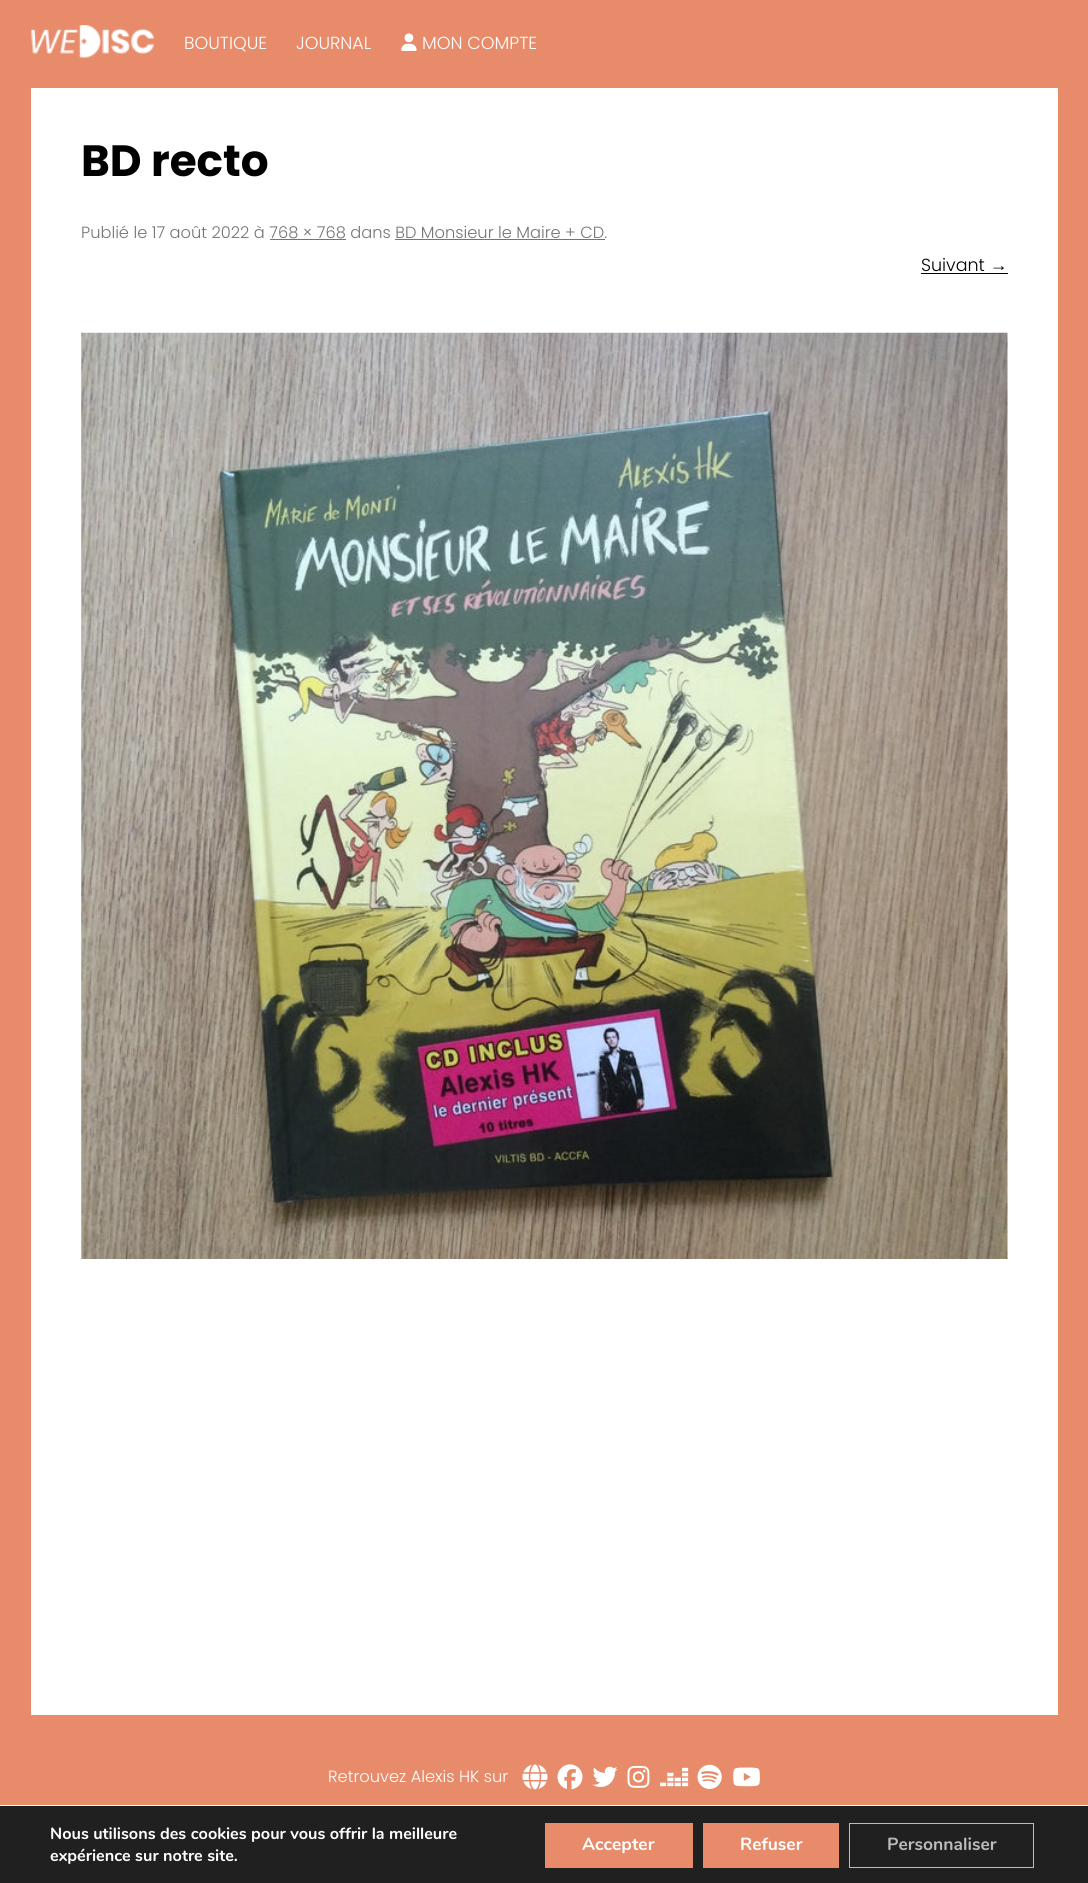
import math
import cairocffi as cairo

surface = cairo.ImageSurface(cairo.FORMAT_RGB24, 1088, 1883)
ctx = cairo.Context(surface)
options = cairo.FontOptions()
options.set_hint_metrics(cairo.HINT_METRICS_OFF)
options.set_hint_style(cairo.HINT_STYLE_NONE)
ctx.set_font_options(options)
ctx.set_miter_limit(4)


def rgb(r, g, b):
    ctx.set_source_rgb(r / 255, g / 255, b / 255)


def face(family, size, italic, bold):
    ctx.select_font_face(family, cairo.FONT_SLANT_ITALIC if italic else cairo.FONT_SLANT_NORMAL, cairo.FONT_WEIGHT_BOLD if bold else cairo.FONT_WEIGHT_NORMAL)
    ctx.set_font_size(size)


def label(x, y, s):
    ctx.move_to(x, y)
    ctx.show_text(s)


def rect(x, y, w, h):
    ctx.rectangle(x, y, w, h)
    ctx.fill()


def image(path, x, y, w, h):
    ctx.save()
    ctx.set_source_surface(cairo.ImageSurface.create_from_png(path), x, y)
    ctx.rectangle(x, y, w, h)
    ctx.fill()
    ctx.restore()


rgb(255, 255, 255)
ctx.paint()
rgb(231, 139, 107)
rect(1058, 0, 30, 1805)
rect(0, 0, 31, 1805)
rect(31, 0, 1027, 88)
image('image0.png', 31, 25, 123, 33)
face('Poppins Light', 17.5, 0, 0)
rgb(255, 255, 255)
label(184, 49, 'BOUTIQUE')
label(296, 49, 'JOURNAL')
image('image1.png', 401, 33, 16, 18)
label(422, 49, 'MON COMPTE')
face('Poppins', 43.75, 0, 1)
rgb(0, 0, 0)
label(81, 176, 'BD recto')
face('Poppins Light', 16.25, 0, 0)
rgb(117, 117, 117)
label(81, 238, 'Publié le 17 août 2022 à 768 × 768 dans BD Monsieur le Maire + CD.')
rect(270, 239, 76, 1)
rect(395, 239, 210, 1)
face('Poppins Light', 17.5, 0, 0)
rgb(0, 0, 0)
label(921, 271, 'Suivant')
face('Liberation Sans', 17.5, 0, 0)
label(990, 271, '→')
rect(921, 273, 87, 1)
image('image2.png', 81, 332, 927, 927)
rgb(231, 139, 107)
rect(31, 1715, 1027, 90)
face('Poppins Light', 16.25, 0, 0)
rgb(255, 255, 255)
label(328, 1782, 'Retrouvez Alexis HK sur')
image('image3.png', 522, 1764, 26, 26)
image('image4.png', 557, 1764, 26, 26)
image('image5.png', 592, 1766, 26, 21)
image('image6.png', 627, 1765, 23, 23)
image('image7.png', 660, 1767, 29, 20)
image('image8.png', 697, 1764, 25, 25)
image('image9.png', 733, 1767, 27, 20)
rgb(32, 32, 32)
rect(0, 1806, 1088, 77)
face('Nunito', 16.25, 0, 1)
rgb(255, 255, 255)
label(50, 1839, 'Nous utilisons des cookies pour vous offrir la meilleure')
label(50, 1861, 'expérience sur notre site.')
rgb(231, 139, 107)
rect(545, 1823, 148, 45)
face('Nunito', 17.5, 0, 1)
rgb(255, 255, 255)
label(582, 1850, 'Accepter')
rgb(231, 139, 107)
rect(703, 1823, 136, 45)
rgb(255, 255, 255)
label(740, 1850, 'Refuser')
ctx.rectangle(849.5, 1823.5, 184, 44)
rgb(188, 188, 188)
ctx.set_line_width(1)
ctx.stroke()
label(887, 1850, 'Personnaliser')
surface.write_to_png('render.png')
